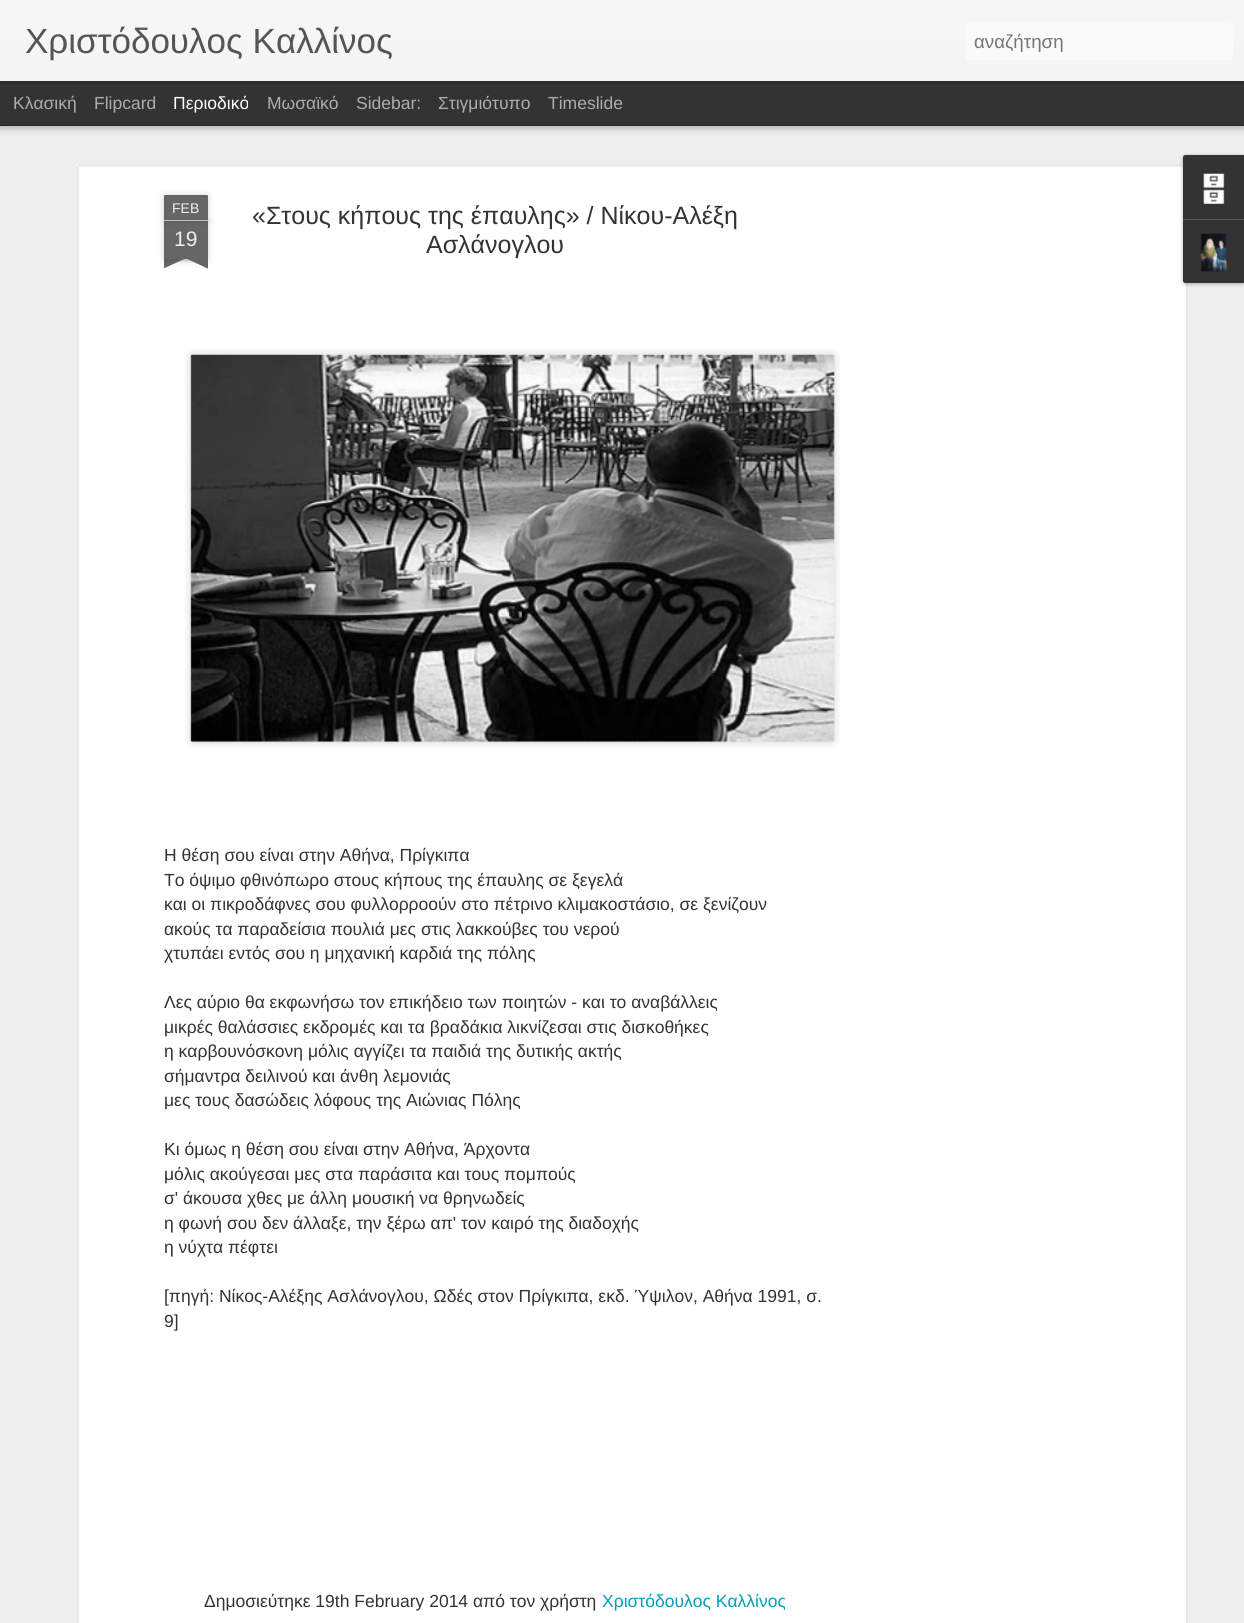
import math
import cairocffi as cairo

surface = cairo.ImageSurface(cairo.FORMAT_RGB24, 1244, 1623)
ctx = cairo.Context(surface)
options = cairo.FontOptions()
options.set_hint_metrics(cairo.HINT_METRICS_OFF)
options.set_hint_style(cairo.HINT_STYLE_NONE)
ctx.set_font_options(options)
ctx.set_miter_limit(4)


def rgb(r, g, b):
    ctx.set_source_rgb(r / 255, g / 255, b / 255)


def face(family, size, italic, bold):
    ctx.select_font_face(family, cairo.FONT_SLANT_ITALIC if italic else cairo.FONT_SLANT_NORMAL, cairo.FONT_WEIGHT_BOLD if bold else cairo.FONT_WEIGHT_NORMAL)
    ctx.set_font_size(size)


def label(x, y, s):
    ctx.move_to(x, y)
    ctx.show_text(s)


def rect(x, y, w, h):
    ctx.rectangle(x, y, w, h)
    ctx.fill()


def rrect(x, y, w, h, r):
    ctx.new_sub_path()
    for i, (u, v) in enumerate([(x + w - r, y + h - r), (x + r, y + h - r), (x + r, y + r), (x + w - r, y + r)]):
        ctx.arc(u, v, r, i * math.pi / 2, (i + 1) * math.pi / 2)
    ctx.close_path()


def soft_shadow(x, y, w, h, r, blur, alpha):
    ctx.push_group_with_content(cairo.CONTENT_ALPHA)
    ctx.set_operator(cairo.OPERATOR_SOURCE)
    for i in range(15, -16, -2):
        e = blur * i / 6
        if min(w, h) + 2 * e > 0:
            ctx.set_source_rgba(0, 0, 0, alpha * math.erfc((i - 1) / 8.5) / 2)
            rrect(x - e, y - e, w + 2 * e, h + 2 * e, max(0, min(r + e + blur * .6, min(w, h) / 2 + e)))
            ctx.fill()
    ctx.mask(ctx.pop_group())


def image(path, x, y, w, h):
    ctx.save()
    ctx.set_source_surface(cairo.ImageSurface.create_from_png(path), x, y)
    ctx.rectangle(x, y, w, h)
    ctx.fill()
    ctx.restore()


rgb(51, 51, 51)
ctx.paint()
rgb(238, 238, 238)
rect(0, 126, 1244, 1497)
rgb(0, 0, 0)
soft_shadow(0, 81, 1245, 44, 0, 5, 0.5)
rgb(51, 51, 51)
rect(0, 81, 1244, 44)
rgb(0, 0, 0)
soft_shadow(0, 0, 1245, 81, 0, 3, 0.3)
gradient = cairo.LinearGradient(0, 0, 0, 81)
gradient.add_color_stop_rgba(0, 0.969, 0.969, 0.969, 1)
gradient.add_color_stop_rgba(1, 0.957, 0.957, 0.957, 1)
ctx.set_source(gradient)
rect(0, 0, 1244, 81)
face('Liberation Sans', 35, 0, 0)
rgb(85, 85, 85)
label(25, 53, 'Χριστόδουλος Καλλίνος')
rgb(250, 250, 250)
rrect(965, 23, 268, 37, 4)
ctx.fill()
face('Liberation Sans', 18.75, 0, 0)
rgb(117, 117, 117)
label(974, 48, 'αναζήτηση')
face('Liberation Sans', 17.5, 0, 0)
rgb(173, 173, 173)
label(13, 109, 'Κλασική')
label(94, 109, 'Flipcard')
rgb(255, 255, 255)
label(173, 109, 'Περιοδικό')
rgb(173, 173, 173)
label(267, 109, 'Μωσαϊκό')
label(356, 109, 'Sidebar:')
label(438, 109, 'Στιγμιότυπο')
label(548, 109, 'Timeslide')
rgb(255, 255, 255)
rect(76, 164, 1113, 1459)
image('image0.png', 76, 164, 1113, 1459)
rgb(0, 0, 0)
soft_shadow(164, 221, 44, 38, 0, 3, 0.2)
rgb(102, 102, 102)
rect(164, 221, 44, 38)
rgb(0, 0, 0)
soft_shadow(164, 195, 44, 26, 1, 3, 0.2)
rgb(102, 102, 102)
ctx.new_path()
ctx.move_to(165, 195)
ctx.line_to(207, 195)
ctx.curve_to(207.5, 195, 208, 195.5, 208, 196)
ctx.line_to(208, 221)
ctx.line_to(164, 221)
ctx.line_to(164, 196)
ctx.curve_to(164, 195.5, 164.5, 195, 165, 195)
ctx.close_path()
ctx.fill()
rgb(194, 194, 194)
rect(164, 220, 44, 1)
face('Liberation Sans', 14, 0, 0)
rgb(238, 238, 238)
label(172, 213, 'FEB')
face('Liberation Sans', 21, 0, 0)
label(174, 246, '19')
ctx.save()
ctx.rectangle(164, 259, 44, 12)
ctx.clip()
rgb(0, 0, 0)
soft_shadow(153, 246, 62, 13, 0, 3, 0.2)
ctx.restore()
ctx.save()
ctx.rectangle(164, 259, 44, 12)
ctx.clip()
rgb(102, 102, 102)
ctx.new_path()
ctx.move_to(153, 260)
ctx.line_to(209, 234)
ctx.line_to(215, 245)
ctx.line_to(158, 271)
ctx.close_path()
ctx.fill()
ctx.restore()
ctx.save()
ctx.rectangle(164, 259, 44, 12)
ctx.clip()
rgb(0, 0, 0)
soft_shadow(156, 246, 63, 13, 0, 3, 0.2)
ctx.restore()
ctx.save()
ctx.rectangle(164, 259, 44, 12)
ctx.clip()
rgb(102, 102, 102)
ctx.new_path()
ctx.move_to(162, 234)
ctx.line_to(218, 260)
ctx.line_to(213, 271)
ctx.line_to(157, 245)
ctx.close_path()
ctx.fill()
ctx.restore()
face('Liberation Sans', 25, 0, 0)
rgb(51, 51, 51)
label(252, 224, '«Στους κήπους της έπαυλης» / Νίκου-Αλέξη')
label(426, 253, 'Ασλάνογλου')
image('image1.png', 185, 349, 655, 399)
image('image2.png', 190, 354, 645, 389)
face('Liberation Sans', 17.5, 0, 0)
label(164, 861, 'Η θέση σου είναι στην Αθήνα, Πρίγκιπα')
label(164, 886, 'Το όψιμο φθινόπωρο στους κήπους της έπαυλης σε ξεγελά')
label(164, 910, 'και οι πικροδάφνες σου φυλλορροούν στο πέτρινο κλιμακοστάσιο, σε ξενίζουν')
label(164, 935, 'ακούς τα παραδείσια πουλιά μες στις λακκούβες του νερού')
label(164, 959, 'χτυπάει εντός σου η μηχανική καρδιά της πόλης')
label(164, 1008, 'Λες αύριο θα εκφωνήσω τον επικήδειο των ποιητών - και το αναβάλλεις')
label(164, 1033, 'μικρές θαλάσσιες εκδρομές και τα βραδάκια λικνίζεσαι στις δισκοθήκες')
label(164, 1057, 'η καρβουνόσκονη μόλις αγγίζει τα παιδιά της δυτικής ακτής')
label(164, 1082, 'σήμαντρα δειλινού και άνθη λεμονιάς')
label(164, 1106, 'μες τους δασώδεις λόφους της Αιώνιας Πόλης')
label(164, 1155, 'Κι όμως η θέση σου είναι στην Αθήνα, Άρχοντα')
label(164, 1180, 'μόλις ακούγεσαι μες στα παράσιτα και τους πομπούς')
label(164, 1204, 'σ\' άκουσα χθες με άλλη μουσική να θρηνωδείς')
label(164, 1229, 'η φωνή σου δεν άλλαξε, την ξέρω απ\' τον καιρό της διαδοχής')
label(164, 1253, 'η νύχτα πέφτει')
label(164, 1302, '[πηγή: Νίκος-Αλέξης Ασλάνογλου, Ωδές στον Πρίγκιπα, εκδ. Ύψιλον, Αθήνα 1991, σ.')
label(164, 1327, '9]')
label(204, 1607, 'Δημοσιεύτηκε 19th February 2014 από τον χρήστη')
rgb(0, 158, 184)
label(602, 1607, 'Χριστόδουλος Καλλίνος')
rgb(0, 0, 0)
soft_shadow(1183, 156, 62, 128, 2.5, 2, 0.3)
rgb(51, 51, 51)
ctx.new_path()
ctx.move_to(1185.5, 155)
ctx.line_to(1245, 155)
ctx.line_to(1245, 219)
ctx.line_to(1183, 219)
ctx.line_to(1183, 157.5)
ctx.curve_to(1183, 156, 1184, 155, 1185.5, 155)
ctx.close_path()
ctx.fill()
image('image3.png', 1203, 173, 22, 31)
ctx.new_path()
ctx.move_to(1183, 219)
ctx.line_to(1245, 219)
ctx.line_to(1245, 283)
ctx.line_to(1185.5, 283)
ctx.curve_to(1184, 283, 1183, 282, 1183, 280.5)
ctx.close_path()
ctx.fill()
rgb(88, 88, 88)
rect(1183, 219, 61, 1)
image('image4.png', 1200, 233, 27, 39)
surface.write_to_png('render.png')
